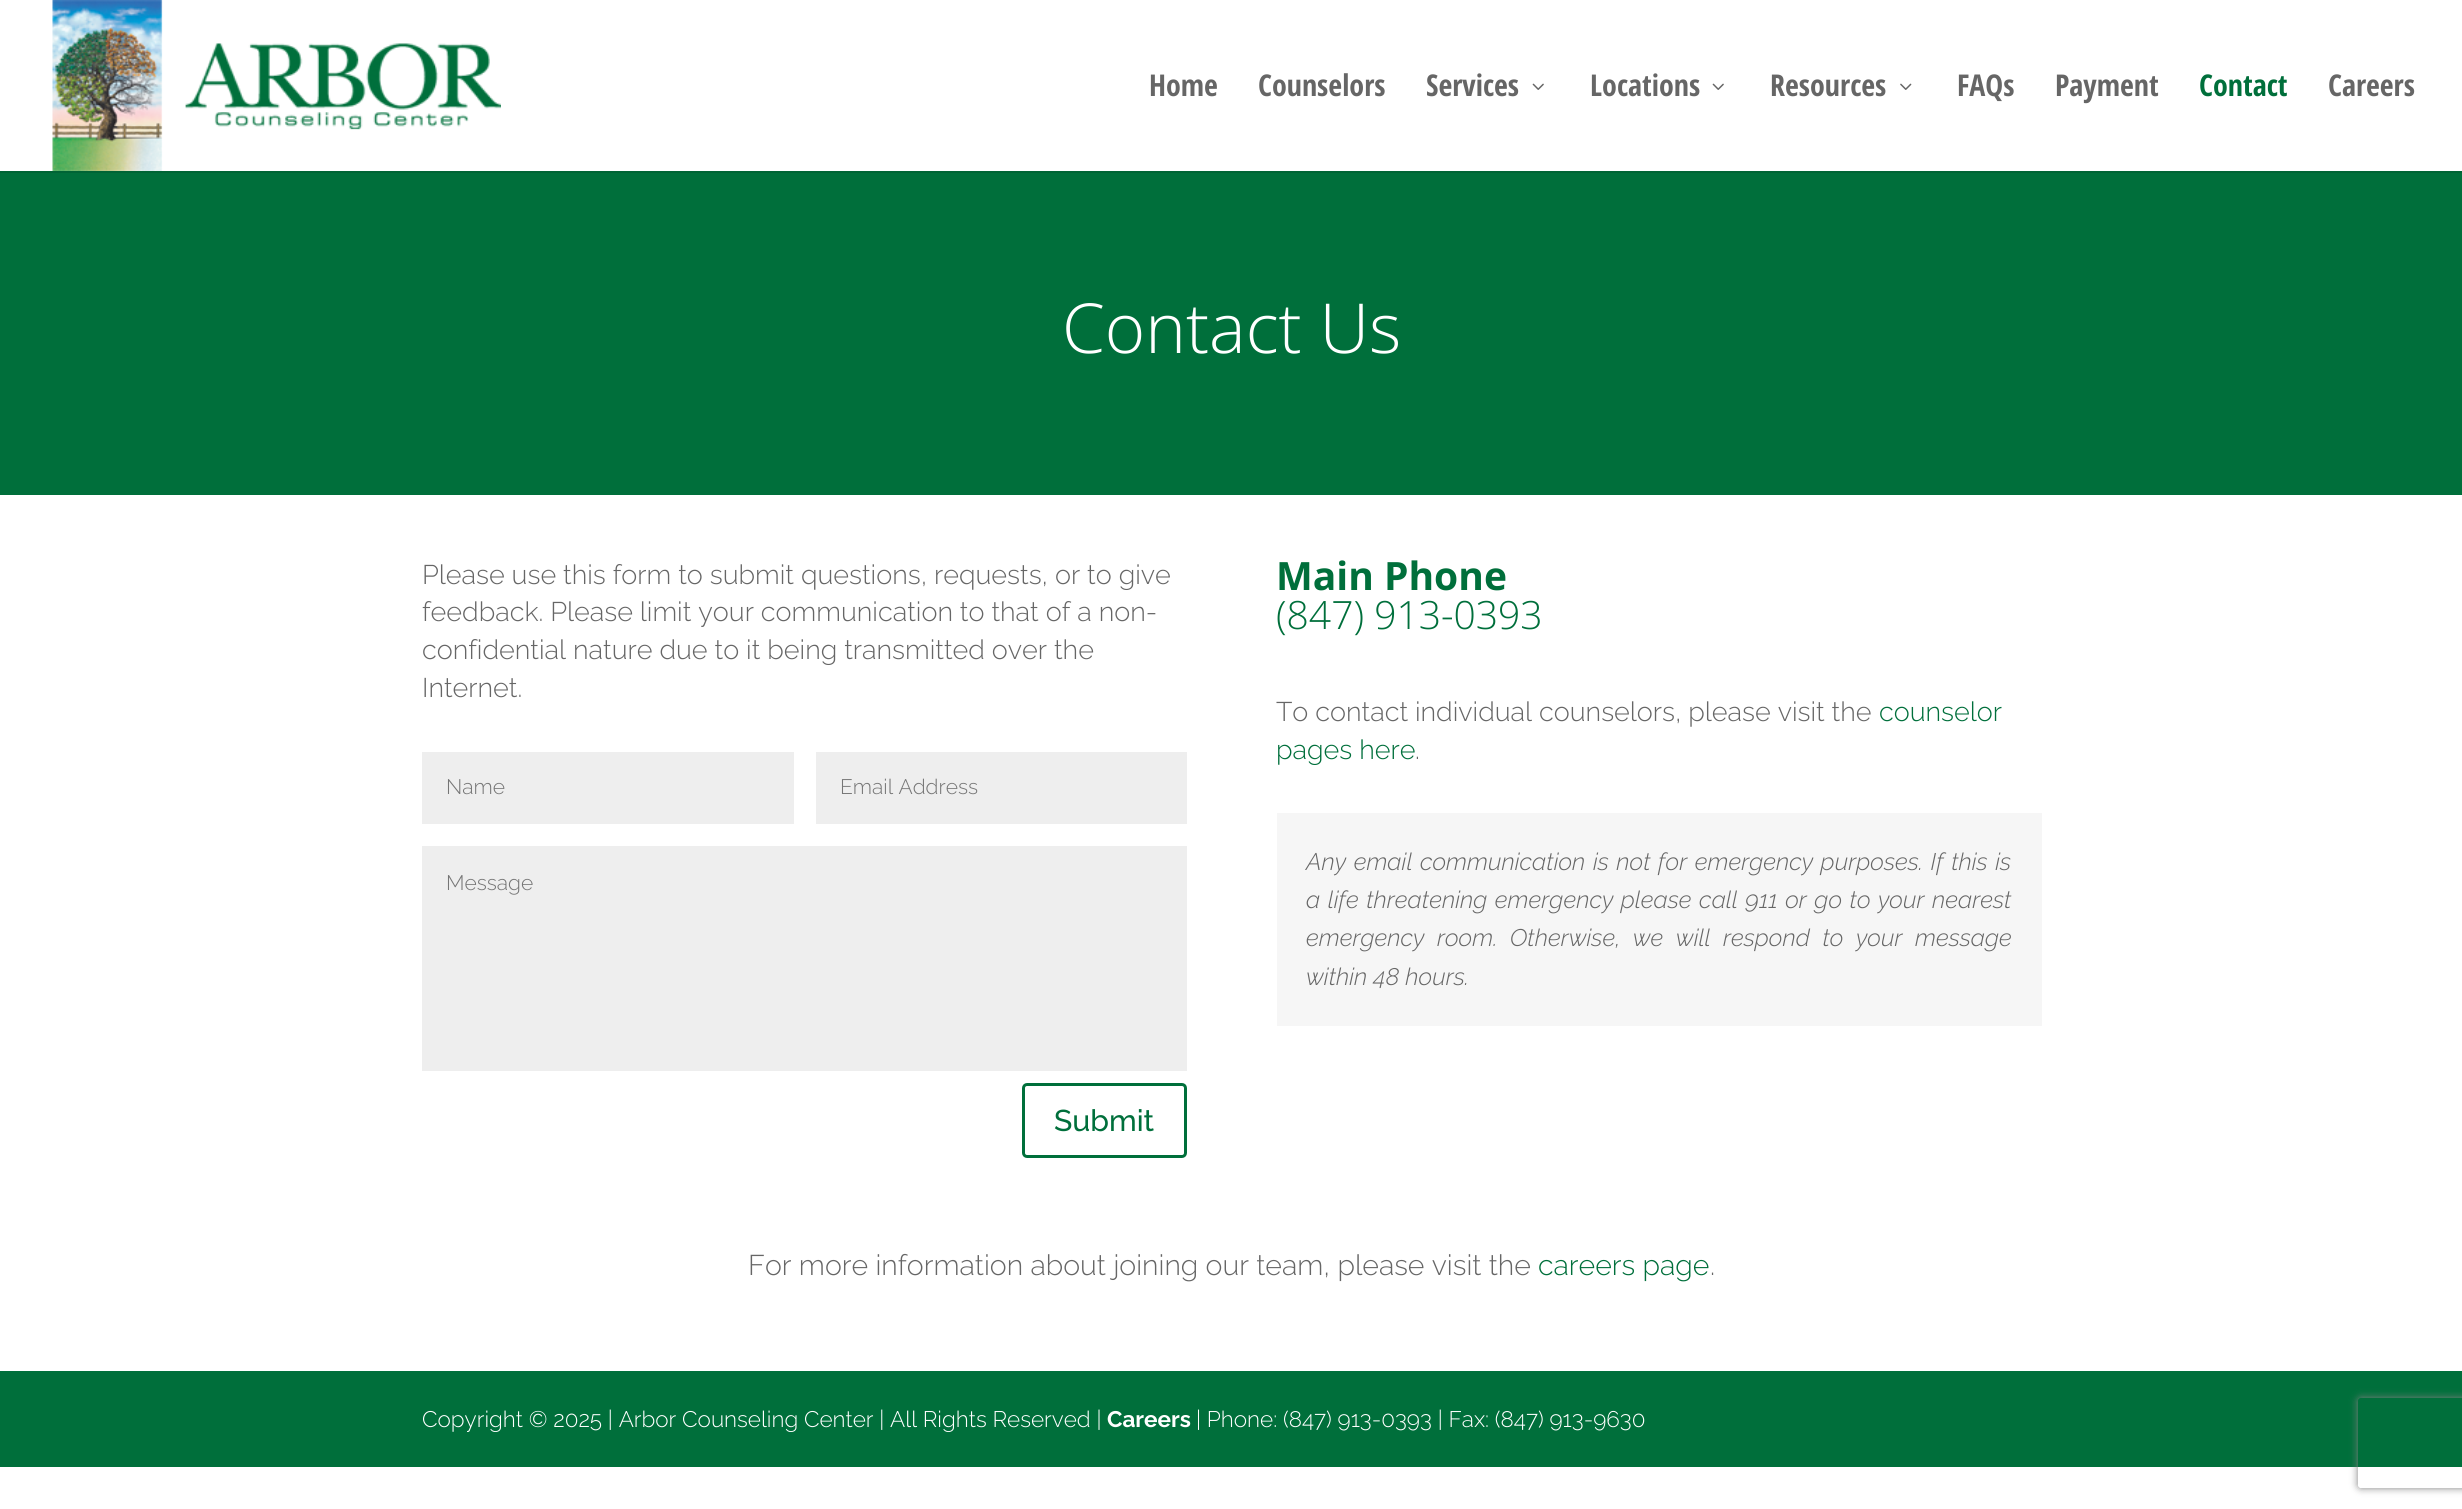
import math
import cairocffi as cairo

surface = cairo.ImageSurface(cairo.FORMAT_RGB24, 2462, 1509)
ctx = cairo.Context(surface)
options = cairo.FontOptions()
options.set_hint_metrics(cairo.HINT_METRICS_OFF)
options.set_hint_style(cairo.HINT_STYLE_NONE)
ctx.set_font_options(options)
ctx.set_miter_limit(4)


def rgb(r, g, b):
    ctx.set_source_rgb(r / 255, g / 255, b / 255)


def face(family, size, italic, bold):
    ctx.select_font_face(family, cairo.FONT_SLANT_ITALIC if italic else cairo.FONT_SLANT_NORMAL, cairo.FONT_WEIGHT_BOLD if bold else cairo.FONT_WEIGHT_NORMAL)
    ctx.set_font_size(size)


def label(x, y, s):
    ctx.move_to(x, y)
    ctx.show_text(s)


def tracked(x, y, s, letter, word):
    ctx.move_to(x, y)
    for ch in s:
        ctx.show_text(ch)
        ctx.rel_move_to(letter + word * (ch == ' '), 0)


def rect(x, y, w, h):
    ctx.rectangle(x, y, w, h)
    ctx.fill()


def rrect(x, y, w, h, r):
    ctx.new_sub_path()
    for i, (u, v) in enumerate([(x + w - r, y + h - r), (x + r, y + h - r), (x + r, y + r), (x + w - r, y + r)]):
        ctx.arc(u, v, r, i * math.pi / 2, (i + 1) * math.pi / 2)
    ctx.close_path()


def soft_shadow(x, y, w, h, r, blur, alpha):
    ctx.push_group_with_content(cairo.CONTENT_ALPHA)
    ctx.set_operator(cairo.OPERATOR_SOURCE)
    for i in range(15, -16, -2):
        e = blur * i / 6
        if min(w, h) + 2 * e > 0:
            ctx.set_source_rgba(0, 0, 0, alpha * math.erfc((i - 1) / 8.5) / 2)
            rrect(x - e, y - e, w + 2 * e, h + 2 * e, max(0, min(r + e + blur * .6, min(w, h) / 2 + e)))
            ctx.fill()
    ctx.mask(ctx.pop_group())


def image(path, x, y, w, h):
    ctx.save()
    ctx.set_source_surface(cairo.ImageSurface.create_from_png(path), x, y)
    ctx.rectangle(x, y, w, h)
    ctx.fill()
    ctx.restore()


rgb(255, 255, 255)
ctx.paint()
rgb(0, 100, 53)
rect(0, 171, 2462, 2)
image('image0.png', 52, 0, 449, 171)
face('Open Sans Condensed', 30, 0, 1)
rgb(102, 102, 102)
label(1149, 96, 'Home')
label(1258, 96, 'Counselors')
label(1426, 96, 'Services')
image('image1.png', 1532, 83, 12, 7)
label(1590, 96, 'Locations')
image('image1.png', 1712, 83, 12, 7)
label(1770, 96, 'Resources')
image('image2.png', 1900, 83, 12, 7)
label(1957, 96, 'FAQs')
label(2055, 96, 'Payment')
rgb(0, 111, 59)
label(2199, 96, 'Contact')
rgb(102, 102, 102)
label(2328, 96, 'Careers')
rgb(0, 111, 59)
rect(0, 173, 2462, 322)
face('Open Sans Light', 69, 0, 0)
rgb(255, 255, 255)
label(1062, 353, 'Contact Us')
face('Raleway Light', 27, 0, 0)
rgb(102, 102, 102)
label(422, 584, 'Please use this form to submit questions, requests, or to give')
label(422, 621, 'feedback. Please limit your communication to that of a non-')
label(422, 659, 'confidential nature due to it being transmitted over the')
label(422, 697, 'Internet.')
rgb(238, 238, 238)
rect(422, 752, 372, 72)
face('Raleway Light', 21, 0, 0)
rgb(117, 117, 117)
label(446, 794, 'Name')
rgb(238, 238, 238)
rect(816, 752, 371, 72)
rgb(117, 117, 117)
label(840, 794, 'Email Address')
rgb(238, 238, 238)
rect(422, 846, 765, 225)
rgb(117, 117, 117)
label(446, 890, 'Message')
rrect(1023.5, 1084.5, 162, 72, 3.5)
rgb(0, 111, 59)
ctx.set_line_width(3)
ctx.stroke()
face('Raleway Medium', 30, 0, 0)
label(1054, 1131, 'Submit')
face('Open Sans', 39, 0, 1)
label(1276, 590, 'Main Phone')
face('Open Sans Light', 39, 0, 0)
label(1276, 629, '(847) 913-0393')
face('Raleway Light', 27, 0, 0)
rgb(102, 102, 102)
label(1276, 721, 'To contact individual counselors, please visit the')
rgb(0, 111, 59)
label(1879, 721, 'counselor')
label(1276, 759, 'pages here')
rgb(102, 102, 102)
label(1415, 759, '.')
rgb(246, 246, 246)
rect(1277, 813, 765, 213)
face('Raleway Light', 24, 1, 0)
rgb(102, 102, 102)
tracked(1306, 870, 'Any email communication is not for emergency purposes. If this is', 0, 1.5)
tracked(1306, 908, 'a life threatening emergency please call 911 or go to your nearest', 0, 1.5)
tracked(1306, 946, 'emergency room. Otherwise, we will respond to your message', 0, 6.5)
label(1306, 985, 'within 48 hours.')
face('Raleway Light', 28.5, 0, 0)
label(748, 1275, 'For more information about joining our team, please visit the')
rgb(0, 111, 59)
label(1538, 1275, 'careers page')
rgb(102, 102, 102)
label(1710, 1275, '.')
rgb(0, 111, 59)
rect(0, 1371, 2462, 96)
face('Raleway Light', 22.5, 0, 0)
rgb(255, 255, 255)
label(422, 1427, 'Copyright © 2025 | Arbor Counseling Center | All Rights Reserved |')
face('Raleway', 22.5, 0, 1)
label(1107, 1427, 'Careers')
face('Raleway Light', 22.5, 0, 0)
label(1196, 1427, '| Phone: (847) 913-0393 | Fax: (847) 913-9630')
ctx.save()
ctx.set_fill_rule(cairo.FILL_RULE_EVEN_ODD)
ctx.new_path()
ctx.move_to(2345, 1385)
ctx.line_to(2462, 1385)
ctx.line_to(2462, 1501)
ctx.line_to(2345, 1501)
ctx.close_path()
ctx.move_to(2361, 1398)
ctx.line_to(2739, 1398)
ctx.curve_to(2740.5, 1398, 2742, 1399.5, 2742, 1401)
ctx.line_to(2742, 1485)
ctx.curve_to(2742, 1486.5, 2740.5, 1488, 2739, 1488)
ctx.line_to(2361, 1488)
ctx.curve_to(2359.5, 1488, 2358, 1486.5, 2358, 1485)
ctx.line_to(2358, 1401)
ctx.curve_to(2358, 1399.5, 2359.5, 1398, 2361, 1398)
ctx.close_path()
ctx.clip()
rgb(128, 128, 128)
soft_shadow(2358, 1398, 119, 90, 3, 4, 1)
ctx.restore()
surface.write_to_png('render.png')
